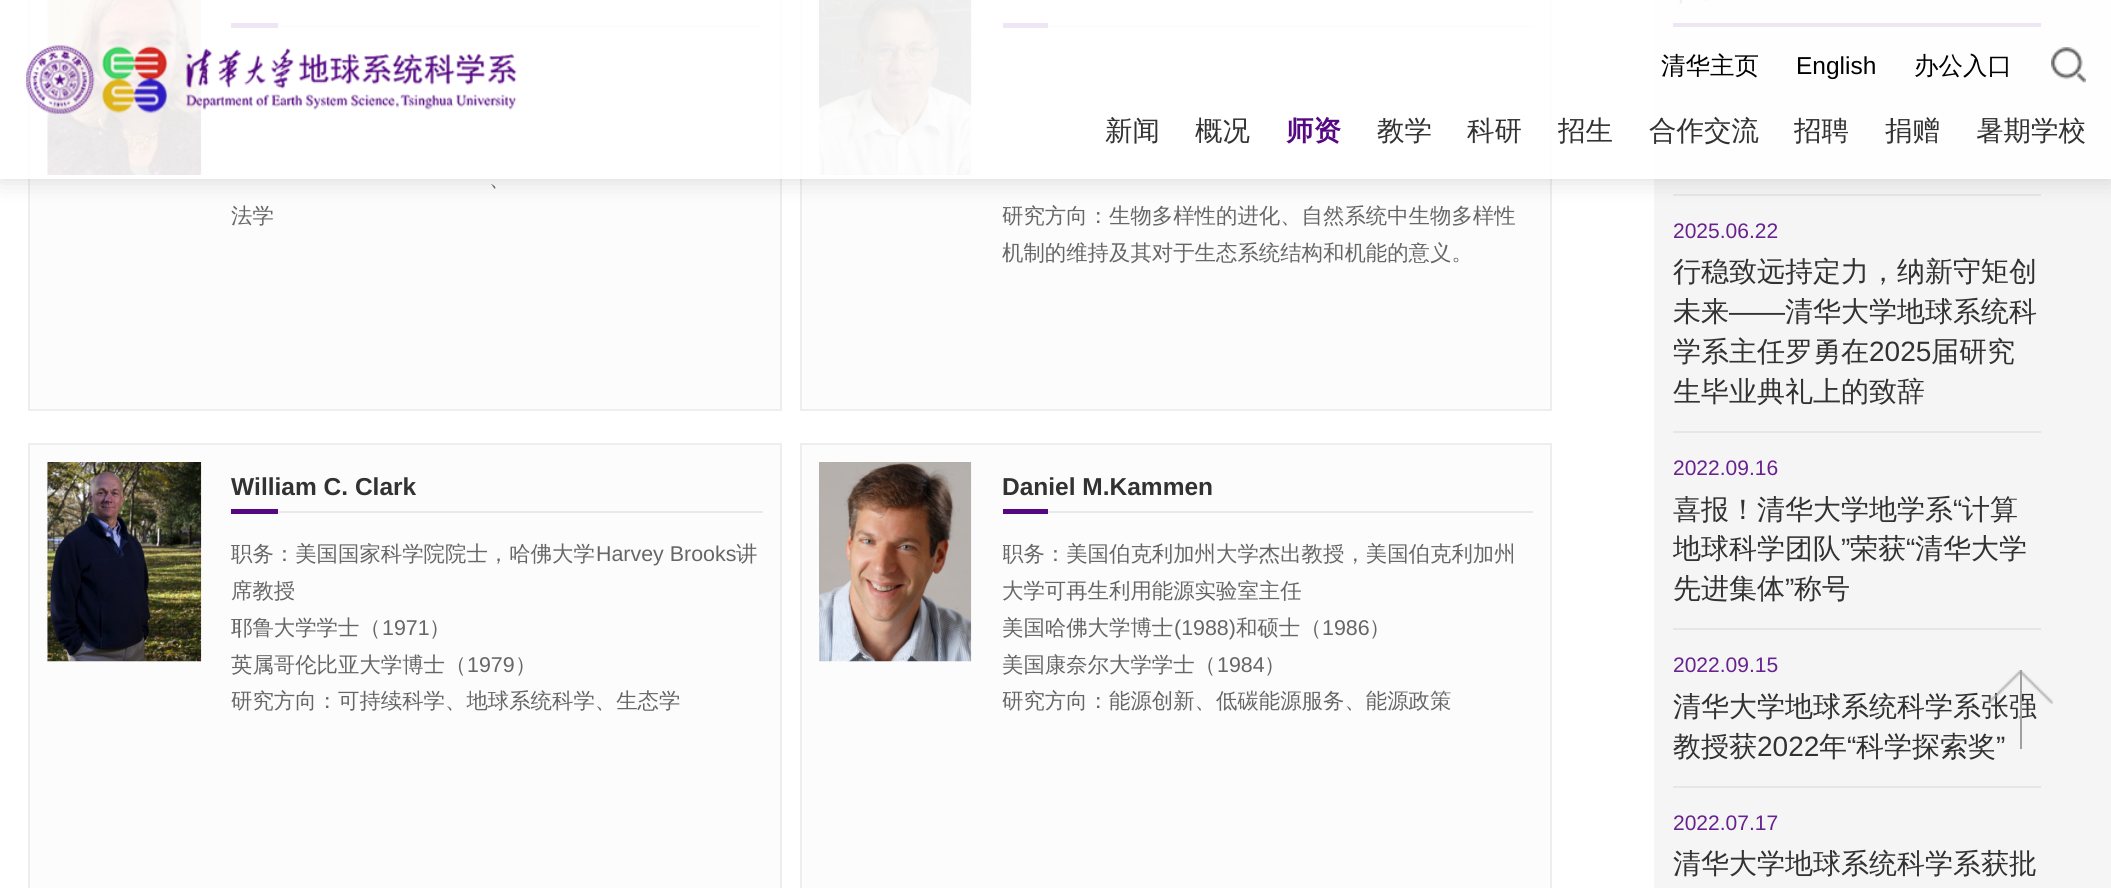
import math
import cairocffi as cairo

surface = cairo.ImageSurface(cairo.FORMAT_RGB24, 2111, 888)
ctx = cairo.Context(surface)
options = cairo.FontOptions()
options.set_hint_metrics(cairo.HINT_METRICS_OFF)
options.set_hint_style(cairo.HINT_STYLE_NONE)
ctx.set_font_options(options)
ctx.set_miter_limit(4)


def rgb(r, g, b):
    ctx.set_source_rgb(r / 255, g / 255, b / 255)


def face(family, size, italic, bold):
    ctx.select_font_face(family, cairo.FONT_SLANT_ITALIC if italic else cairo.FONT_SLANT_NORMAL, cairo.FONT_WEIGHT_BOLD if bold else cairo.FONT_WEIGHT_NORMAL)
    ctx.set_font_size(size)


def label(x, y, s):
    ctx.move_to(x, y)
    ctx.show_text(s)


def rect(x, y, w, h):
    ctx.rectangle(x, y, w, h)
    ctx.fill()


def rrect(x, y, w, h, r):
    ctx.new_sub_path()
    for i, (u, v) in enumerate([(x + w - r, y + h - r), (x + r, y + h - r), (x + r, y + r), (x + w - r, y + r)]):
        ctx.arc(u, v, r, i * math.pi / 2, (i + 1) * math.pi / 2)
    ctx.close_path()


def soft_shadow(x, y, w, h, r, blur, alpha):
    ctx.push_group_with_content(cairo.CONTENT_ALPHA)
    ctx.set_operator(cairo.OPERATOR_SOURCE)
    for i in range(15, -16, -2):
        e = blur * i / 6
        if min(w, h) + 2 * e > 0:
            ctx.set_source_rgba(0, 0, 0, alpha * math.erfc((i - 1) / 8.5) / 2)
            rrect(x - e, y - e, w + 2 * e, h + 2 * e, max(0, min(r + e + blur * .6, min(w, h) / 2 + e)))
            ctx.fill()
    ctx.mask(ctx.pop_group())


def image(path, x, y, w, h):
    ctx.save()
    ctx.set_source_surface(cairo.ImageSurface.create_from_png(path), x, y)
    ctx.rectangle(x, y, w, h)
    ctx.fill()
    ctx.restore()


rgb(255, 255, 255)
ctx.paint()
rgb(252, 252, 252)
ctx.rectangle(29, -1, 752, 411)
ctx.fill_preserve()
rgb(238, 238, 238)
ctx.stroke()
image('image2.png', 47, 0, 155, 175)
rgb(233, 233, 233)
rect(278, 25, 485, 2)
rgb(85, 8, 130)
rect(231, 23, 47, 5)
rgb(252, 252, 252)
ctx.rectangle(801, -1, 750, 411)
ctx.fill_preserve()
rgb(238, 238, 238)
ctx.stroke()
image('image3.png', 819, 0, 153, 175)
rgb(233, 233, 233)
rect(1048, 25, 485, 2)
rgb(85, 8, 130)
rect(1003, 23, 45, 5)
rgb(245, 245, 245)
rect(1654, 0, 457, 888)
rgb(85, 8, 130)
rect(1673, 23, 368, 4)
image('image6.png', 1679, 0, 30, 4)
rgb(230, 230, 230)
rect(1673, 194, 368, 2)
ctx.save()
ctx.set_fill_rule(cairo.FILL_RULE_EVEN_ODD)
ctx.new_path()
ctx.move_to(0, 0)
ctx.line_to(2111, 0)
ctx.line_to(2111, 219)
ctx.line_to(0, 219)
ctx.close_path()
ctx.move_to(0, 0)
ctx.line_to(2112, 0)
ctx.line_to(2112, 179)
ctx.line_to(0, 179)
ctx.close_path()
ctx.clip()
rgb(0, 0, 0)
soft_shadow(0, 0, 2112, 179, 0, 13, 0.15)
ctx.restore()
ctx.set_source_rgba(1, 1, 1, 0.9)
rect(0, 0, 2111, 179)
face('WenQuanYi Zen Hei Medium', 24.5, 0, 0)
rgb(0, 0, 0)
label(1661, 74, '清华主页')
face('Liberation Sans', 24.5, 0, 0)
label(1796, 74, 'English')
face('WenQuanYi Zen Hei Medium', 24.5, 0, 0)
label(1914, 74, '办公入口')
image('image0.png', 2051, 47, 35, 36)
image('image1.png', 26, 45, 491, 69)
face('WenQuanYi Zen Hei Medium', 27.5, 0, 0)
rgb(50, 50, 50)
label(1105, 140, '新闻')
label(1195, 140, '概况')
face('WenQuanYi Zen Hei', 27.5, 0, 1)
rgb(85, 8, 130)
label(1286, 140, '师资')
face('WenQuanYi Zen Hei Medium', 27.5, 0, 0)
rgb(50, 50, 50)
label(1377, 140, '教学')
label(1467, 140, '科研')
label(1558, 140, '招生')
label(1649, 140, '合作交流')
label(1794, 140, '招聘')
label(1885, 140, '捐赠')
label(1976, 140, '暑期学校')
face('WenQuanYi Zen Hei Medium', 21.4, 0, 0)
rgb(102, 102, 102)
label(489, 186, '、')
label(231, 223, '法学')
label(1002, 223, '研究方向：生物多样性的进化、自然系统中生物多样性')
label(1002, 260, '机制的维持及其对于生态系统结构和机能的意义。')
rgb(252, 252, 252)
ctx.rectangle(29, 444, 752, 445)
ctx.fill_preserve()
rgb(238, 238, 238)
ctx.stroke()
image('image4.png', 47, 462, 155, 200)
rgb(233, 233, 233)
rect(278, 511, 485, 2)
face('Liberation Sans', 24.5, 0, 1)
rgb(50, 50, 50)
label(231, 495, 'William C. Clark')
rgb(85, 8, 130)
rect(231, 509, 47, 5)
face('WenQuanYi Zen Hei Medium', 21.4, 0, 0)
rgb(102, 102, 102)
label(231, 561, '职务：美国国家科学院院士，哈佛大学')
face('Liberation Sans', 21.4, 0, 0)
label(596, 561, 'Harvey Brooks')
face('WenQuanYi Zen Hei Medium', 21.4, 0, 0)
label(736, 561, '讲')
label(231, 598, '席教授')
label(231, 635, '耶鲁大学学士（')
face('Liberation Sans', 21.4, 0, 0)
label(382, 635, '1971')
face('WenQuanYi Zen Hei Medium', 21.4, 0, 0)
label(429, 635, '）')
label(231, 672, '英属哥伦比亚大学博士（')
face('Liberation Sans', 21.4, 0, 0)
label(467, 672, '1979')
face('WenQuanYi Zen Hei Medium', 21.4, 0, 0)
label(515, 672, '）')
label(231, 708, '研究方向：可持续科学、地球系统科学、生态学')
rgb(252, 252, 252)
ctx.rectangle(801, 444, 750, 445)
ctx.fill_preserve()
rgb(238, 238, 238)
ctx.stroke()
image('image5.png', 819, 462, 153, 200)
rgb(233, 233, 233)
rect(1048, 511, 485, 2)
face('Liberation Sans', 24.5, 0, 1)
rgb(50, 50, 50)
label(1002, 495, 'Daniel M.Kammen')
rgb(85, 8, 130)
rect(1003, 509, 45, 5)
ctx.save()
ctx.rectangle(1003, 537, 530, 147)
ctx.clip()
face('WenQuanYi Zen Hei Medium', 21.4, 0, 0)
rgb(102, 102, 102)
label(1002, 561, '职务：美国伯克利加州大学杰出教授，美国伯克利加州')
ctx.restore()
face('WenQuanYi Zen Hei Medium', 21.4, 0, 0)
rgb(102, 102, 102)
label(1002, 598, '大学可再生利用能源实验室主任')
label(1002, 635, '美国哈佛大学博士')
face('Liberation Sans', 21.4, 0, 0)
label(1174, 635, '(1988)')
face('WenQuanYi Zen Hei Medium', 21.4, 0, 0)
label(1236, 635, '和硕士（')
face('Liberation Sans', 21.4, 0, 0)
label(1322, 635, '1986')
face('WenQuanYi Zen Hei Medium', 21.4, 0, 0)
label(1369, 635, '）')
label(1002, 672, '美国康奈尔大学学士（')
face('Liberation Sans', 21.4, 0, 0)
label(1217, 672, '1984')
face('WenQuanYi Zen Hei Medium', 21.4, 0, 0)
label(1264, 672, '）')
label(1002, 708, '研究方向：能源创新、低碳能源服务、能源政策')
rgb(230, 230, 230)
rect(1673, 431, 368, 2)
face('Liberation Sans', 21, 0, 0)
rgb(103, 34, 143)
label(1673, 238, '2025.06.22')
face('WenQuanYi Zen Hei Medium', 28, 0, 0)
rgb(50, 50, 50)
label(1673, 281, '行稳致远持定力，纳新守矩创')
label(1673, 321, '未来')
face('Liberation Sans', 28, 0, 0)
label(1729, 321, '——')
face('WenQuanYi Zen Hei Medium', 28, 0, 0)
label(1785, 321, '清华大学地球系统科')
label(1673, 361, '学系主任罗勇在')
face('Liberation Sans', 28, 0, 0)
label(1869, 361, '2025')
face('WenQuanYi Zen Hei Medium', 28, 0, 0)
label(1931, 361, '届研究')
label(1673, 401, '生毕业典礼上的致辞')
rgb(230, 230, 230)
rect(1673, 628, 368, 2)
face('Liberation Sans', 21, 0, 0)
rgb(103, 34, 143)
label(1673, 475, '2022.09.16')
face('WenQuanYi Zen Hei Medium', 28, 0, 0)
rgb(50, 50, 50)
label(1673, 519, '喜报！清华大学地学系')
face('Liberation Sans', 28, 0, 0)
label(1953, 519, '“')
face('WenQuanYi Zen Hei Medium', 28, 0, 0)
label(1962, 519, '计算')
label(1673, 558, '地球科学团队')
face('Liberation Sans', 28, 0, 0)
label(1841, 558, '”')
face('WenQuanYi Zen Hei Medium', 28, 0, 0)
label(1850, 558, '荣获')
face('Liberation Sans', 28, 0, 0)
label(1906, 558, '“')
face('WenQuanYi Zen Hei Medium', 28, 0, 0)
label(1915, 558, '清华大学')
label(1673, 598, '先进集体')
face('Liberation Sans', 28, 0, 0)
label(1785, 598, '”')
face('WenQuanYi Zen Hei Medium', 28, 0, 0)
label(1794, 598, '称号')
rgb(230, 230, 230)
rect(1673, 786, 368, 2)
face('Liberation Sans', 21, 0, 0)
rgb(103, 34, 143)
label(1673, 672, '2022.09.15')
face('WenQuanYi Zen Hei Medium', 28, 0, 0)
rgb(50, 50, 50)
label(1673, 716, '清华大学地球系统科学系张强')
label(1673, 756, '教授获')
face('Liberation Sans', 28, 0, 0)
label(1757, 756, '2022')
face('WenQuanYi Zen Hei Medium', 28, 0, 0)
label(1819, 756, '年')
face('Liberation Sans', 28, 0, 0)
label(1847, 756, '“')
face('WenQuanYi Zen Hei Medium', 28, 0, 0)
label(1856, 756, '科学探索奖')
face('Liberation Sans', 28, 0, 0)
label(1996, 756, '”')
face('Liberation Sans', 21, 0, 0)
rgb(103, 34, 143)
label(1673, 830, '2022.07.17')
face('WenQuanYi Zen Hei Medium', 28, 0, 0)
rgb(50, 50, 50)
label(1673, 873, '清华大学地球系统科学系获批')
rgb(160, 160, 160)
rect(2020, 670, 2, 79)
image('image7.png', 1988, 670, 65, 34)
surface.write_to_png('render.png')
